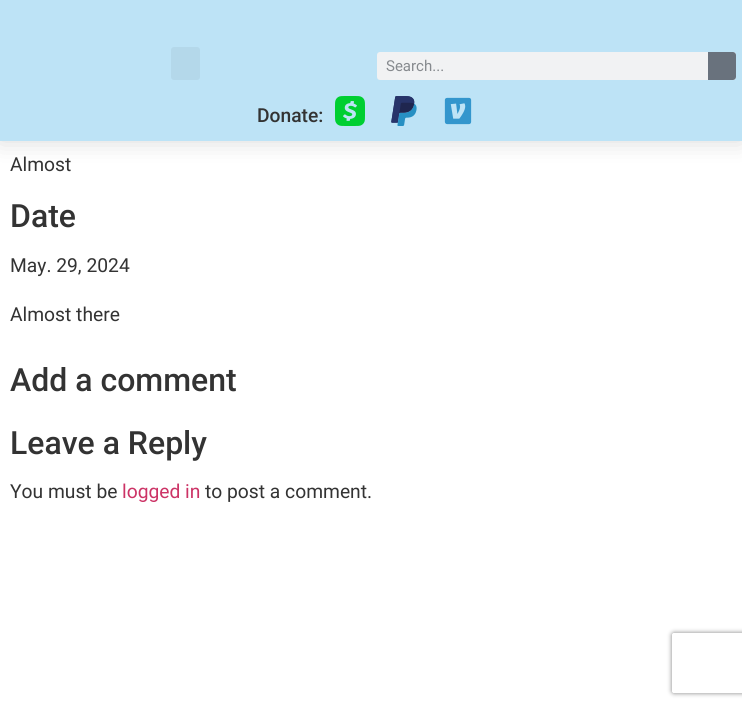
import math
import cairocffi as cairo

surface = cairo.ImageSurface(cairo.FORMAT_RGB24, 742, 707)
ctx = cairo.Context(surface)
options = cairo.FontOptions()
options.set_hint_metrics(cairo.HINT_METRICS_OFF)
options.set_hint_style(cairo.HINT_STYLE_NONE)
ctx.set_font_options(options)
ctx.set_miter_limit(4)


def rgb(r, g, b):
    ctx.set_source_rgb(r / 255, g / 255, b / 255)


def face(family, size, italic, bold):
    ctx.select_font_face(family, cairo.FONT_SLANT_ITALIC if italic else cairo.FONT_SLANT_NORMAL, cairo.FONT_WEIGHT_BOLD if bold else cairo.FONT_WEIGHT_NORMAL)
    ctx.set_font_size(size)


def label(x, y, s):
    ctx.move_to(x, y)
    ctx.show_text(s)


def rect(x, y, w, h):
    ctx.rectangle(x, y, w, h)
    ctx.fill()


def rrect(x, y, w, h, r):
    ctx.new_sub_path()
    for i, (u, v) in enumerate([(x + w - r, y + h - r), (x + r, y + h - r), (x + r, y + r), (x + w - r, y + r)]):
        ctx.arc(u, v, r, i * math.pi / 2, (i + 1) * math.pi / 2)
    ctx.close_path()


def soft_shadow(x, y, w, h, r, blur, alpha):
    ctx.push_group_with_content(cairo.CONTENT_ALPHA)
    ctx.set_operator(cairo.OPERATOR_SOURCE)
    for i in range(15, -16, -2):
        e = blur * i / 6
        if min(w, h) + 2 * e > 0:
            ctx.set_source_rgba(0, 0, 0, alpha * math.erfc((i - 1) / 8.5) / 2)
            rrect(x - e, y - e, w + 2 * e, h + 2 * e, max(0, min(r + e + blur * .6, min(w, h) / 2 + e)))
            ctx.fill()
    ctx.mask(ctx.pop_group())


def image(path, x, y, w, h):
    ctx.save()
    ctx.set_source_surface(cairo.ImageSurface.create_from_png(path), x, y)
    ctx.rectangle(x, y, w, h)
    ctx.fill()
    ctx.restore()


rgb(255, 255, 255)
ctx.paint()
rgb(0, 0, 0)
soft_shadow(0, 0, 742, 141, 0, 12, 0.15)
rgb(189, 227, 246)
rect(0, 0, 742, 141)
rgb(180, 216, 234)
rrect(171, 47, 29, 33, 3)
ctx.fill()
rgb(241, 242, 243)
rrect(377, 52, 359, 28, 3)
ctx.fill()
face('Roboto', 15, 0, 0)
rgb(134, 138, 142)
label(386, 71, 'Search...')
rgb(105, 114, 125)
ctx.new_path()
ctx.move_to(708, 52)
ctx.line_to(733, 52)
ctx.curve_to(734.5, 52, 736, 53.5, 736, 55)
ctx.line_to(736, 77)
ctx.curve_to(736, 78.5, 734.5, 80, 733, 80)
ctx.line_to(708, 80)
ctx.close_path()
ctx.fill()
face('Roboto Medium', 19.25, 0, 0)
rgb(51, 51, 51)
label(257, 122, 'Donate:')
image('image0.png', 335, 96, 30, 30)
image('image1.png', 391, 96, 26, 30)
image('image2.png', 444, 97, 28, 28)
face('Roboto', 19.25, 0, 0)
label(10, 171, 'Almost')
face('Roboto Medium', 32, 0, 0)
label(10, 227, 'Date')
face('Roboto', 19.25, 0, 0)
label(10, 272, 'May. 29, 2024')
label(10, 321, 'Almost there')
face('Roboto Medium', 32, 0, 0)
label(10, 391, 'Add a comment')
label(10, 454, 'Leave a Reply')
face('Roboto', 19.25, 0, 0)
label(10, 498, 'You must be')
rgb(204, 51, 102)
label(122, 498, 'logged in')
rgb(51, 51, 51)
label(205, 498, 'to post a comment.')
ctx.save()
ctx.set_fill_rule(cairo.FILL_RULE_EVEN_ODD)
ctx.new_path()
ctx.move_to(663, 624)
ctx.line_to(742, 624)
ctx.line_to(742, 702)
ctx.line_to(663, 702)
ctx.close_path()
ctx.move_to(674, 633)
ctx.line_to(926, 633)
ctx.curve_to(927, 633, 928, 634, 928, 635)
ctx.line_to(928, 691)
ctx.curve_to(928, 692, 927, 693, 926, 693)
ctx.line_to(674, 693)
ctx.curve_to(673, 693, 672, 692, 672, 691)
ctx.line_to(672, 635)
ctx.curve_to(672, 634, 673, 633, 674, 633)
ctx.close_path()
ctx.clip()
rgb(128, 128, 128)
soft_shadow(672, 633, 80, 60, 2, 2.5, 1)
ctx.restore()
surface.write_to_png('render.png')
